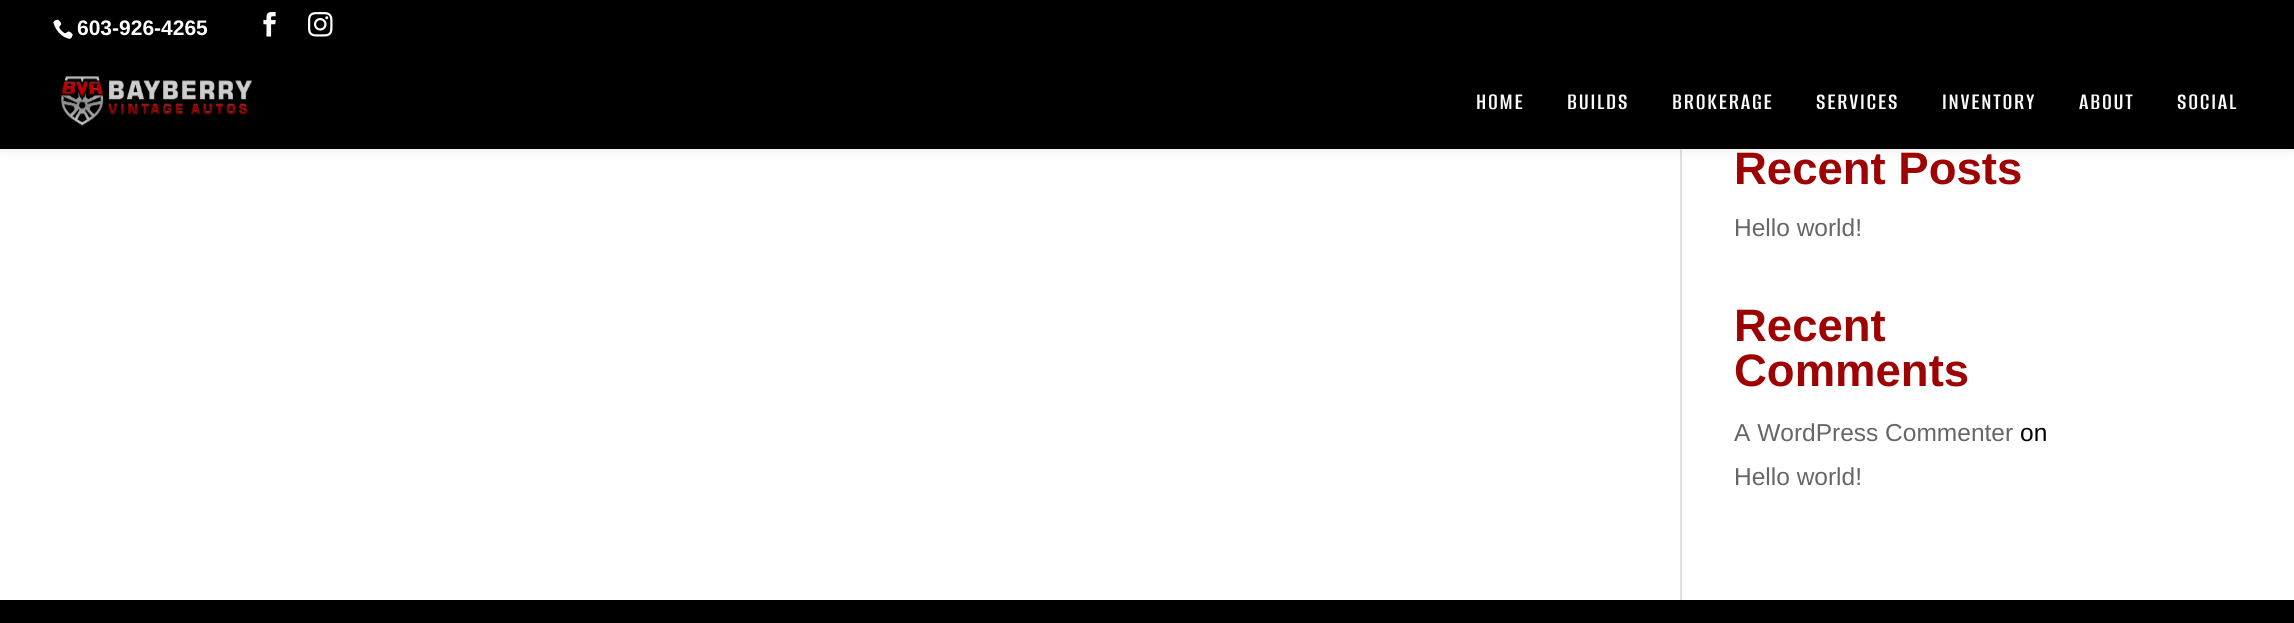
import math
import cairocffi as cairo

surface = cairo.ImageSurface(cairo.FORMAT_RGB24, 2294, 623)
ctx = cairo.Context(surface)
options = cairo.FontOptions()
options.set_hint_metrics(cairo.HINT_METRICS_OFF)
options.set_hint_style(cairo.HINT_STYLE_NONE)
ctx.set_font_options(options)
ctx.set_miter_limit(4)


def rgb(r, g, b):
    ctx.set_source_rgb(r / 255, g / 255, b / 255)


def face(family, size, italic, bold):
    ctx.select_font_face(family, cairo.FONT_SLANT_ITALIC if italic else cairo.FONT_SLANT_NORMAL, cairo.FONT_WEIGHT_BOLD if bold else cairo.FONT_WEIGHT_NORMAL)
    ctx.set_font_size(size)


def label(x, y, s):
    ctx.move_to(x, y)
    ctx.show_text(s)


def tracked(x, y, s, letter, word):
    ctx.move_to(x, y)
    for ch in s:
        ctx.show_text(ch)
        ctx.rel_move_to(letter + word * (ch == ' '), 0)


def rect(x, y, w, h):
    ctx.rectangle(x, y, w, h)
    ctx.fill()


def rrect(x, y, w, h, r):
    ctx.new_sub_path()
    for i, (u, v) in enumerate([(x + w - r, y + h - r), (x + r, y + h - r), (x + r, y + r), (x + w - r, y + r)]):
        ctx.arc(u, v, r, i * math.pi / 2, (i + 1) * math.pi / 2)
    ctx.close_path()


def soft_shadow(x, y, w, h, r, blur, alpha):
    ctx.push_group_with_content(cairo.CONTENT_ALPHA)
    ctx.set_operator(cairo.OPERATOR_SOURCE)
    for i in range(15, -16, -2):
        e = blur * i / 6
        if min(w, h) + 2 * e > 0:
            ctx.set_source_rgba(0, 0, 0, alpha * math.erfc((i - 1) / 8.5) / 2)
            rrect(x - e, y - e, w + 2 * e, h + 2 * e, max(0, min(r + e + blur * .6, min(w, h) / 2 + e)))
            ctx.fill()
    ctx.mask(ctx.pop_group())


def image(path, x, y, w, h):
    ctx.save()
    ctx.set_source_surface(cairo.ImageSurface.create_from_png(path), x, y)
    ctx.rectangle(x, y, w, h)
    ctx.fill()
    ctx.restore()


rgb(255, 255, 255)
ctx.paint()
rgb(226, 226, 226)
rect(1680, 149, 2, 451)
rgb(0, 0, 0)
soft_shadow(0, 54, 2294, 95, 0, 6, 0.1)
rgb(0, 0, 0)
rect(0, 0, 2294, 149)
image('image0.png', 53, 19, 20, 20)
face('Liberation Sans', 21, 0, 1)
rgb(255, 255, 255)
label(77, 35, '603-926-4265')
image('image1.png', 263, 12, 13, 25)
image('image2.png', 308, 12, 25, 25)
image('image3.png', 61, 76, 191, 50)
face('Alumni Sans SemiBold', 24.5, 0, 0)
rgb(249, 249, 249)
tracked(1476, 109, 'HOME', 1.75, 0)
tracked(1567, 109, 'BUILDS', 1.75, 0)
tracked(1672, 109, 'BROKERAGE', 1.75, 0)
tracked(1816, 109, 'SERVICES', 1.75, 0)
tracked(1942, 109, 'INVENTORY', 1.75, 0)
tracked(2079, 109, 'ABOUT', 1.75, 0)
tracked(2177, 109, 'SOCIAL', 1.75, 0)
face('Liberation Sans', 45.5, 0, 1)
rgb(158, 3, 3)
label(1734, 184, 'Recent Posts')
face('Liberation Sans', 24.5, 0, 0)
rgb(102, 102, 102)
label(1734, 236, 'Hello world!')
face('Liberation Sans', 45.5, 0, 1)
rgb(158, 3, 3)
label(1734, 341, 'Recent')
label(1734, 386, 'Comments')
face('Liberation Sans', 24.5, 0, 0)
rgb(102, 102, 102)
label(1734, 441, 'A WordPress Commenter')
rgb(0, 0, 0)
label(2020, 441, 'on')
rgb(102, 102, 102)
label(1734, 485, 'Hello world!')
rgb(0, 0, 0)
rect(0, 600, 2294, 23)
surface.write_to_png('render.png')
